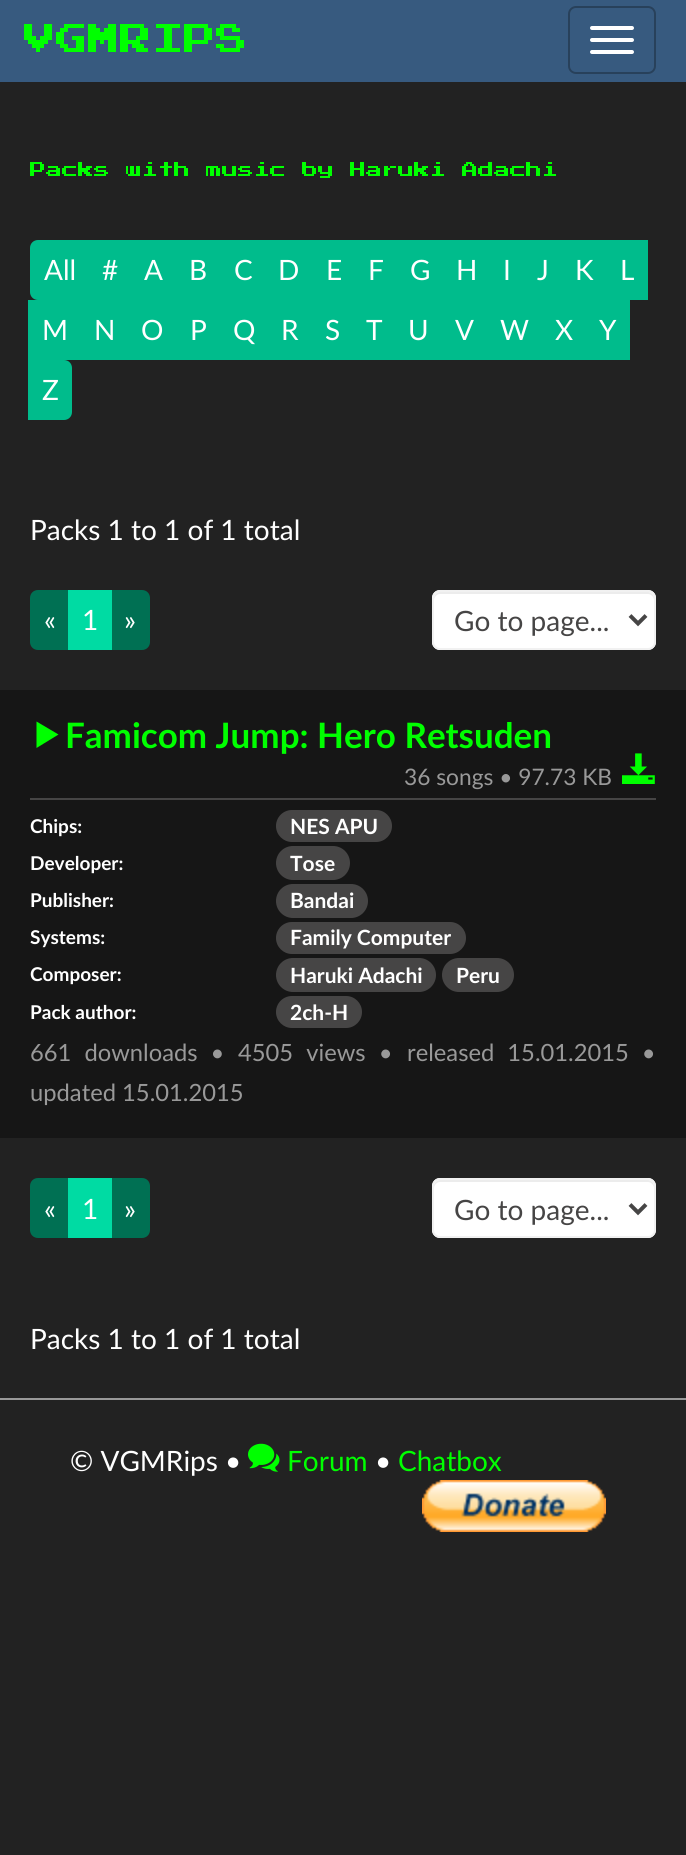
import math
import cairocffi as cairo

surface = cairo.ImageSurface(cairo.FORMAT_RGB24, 686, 1855)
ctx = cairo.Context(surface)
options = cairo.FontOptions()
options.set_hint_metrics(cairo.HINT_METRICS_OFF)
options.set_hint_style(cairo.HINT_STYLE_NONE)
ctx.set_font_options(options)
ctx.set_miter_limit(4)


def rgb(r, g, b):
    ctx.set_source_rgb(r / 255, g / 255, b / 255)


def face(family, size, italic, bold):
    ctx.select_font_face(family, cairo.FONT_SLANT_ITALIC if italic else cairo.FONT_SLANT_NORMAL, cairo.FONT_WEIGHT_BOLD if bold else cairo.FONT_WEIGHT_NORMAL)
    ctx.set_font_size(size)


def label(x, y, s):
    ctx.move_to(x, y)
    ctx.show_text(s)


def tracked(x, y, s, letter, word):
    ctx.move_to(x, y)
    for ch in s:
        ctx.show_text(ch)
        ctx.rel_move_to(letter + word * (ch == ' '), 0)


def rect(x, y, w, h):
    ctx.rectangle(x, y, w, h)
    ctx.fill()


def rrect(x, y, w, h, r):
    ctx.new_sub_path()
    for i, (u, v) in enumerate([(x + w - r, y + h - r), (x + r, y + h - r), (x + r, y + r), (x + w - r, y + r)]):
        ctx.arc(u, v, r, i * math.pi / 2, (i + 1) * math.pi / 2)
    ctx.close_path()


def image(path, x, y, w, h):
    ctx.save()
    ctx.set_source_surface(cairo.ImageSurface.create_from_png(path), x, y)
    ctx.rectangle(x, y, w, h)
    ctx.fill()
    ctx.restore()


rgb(34, 34, 34)
ctx.paint()
rgb(55, 90, 127)
rect(0, 0, 686, 82)
image('image0.png', 24, 24, 220, 28)
rrect(569, 7, 86, 66, 7)
rgb(40, 65, 91)
ctx.stroke()
rgb(255, 255, 255)
rrect(590, 26, 44, 4, 2)
ctx.fill()
rrect(590, 38, 44, 4, 2)
ctx.fill()
rrect(590, 50, 44, 4, 2)
ctx.fill()
image('image1.png', 30, 162, 526, 16)
rgb(0, 188, 140)
ctx.new_path()
ctx.move_to(38, 240)
ctx.line_to(90, 240)
ctx.line_to(90, 300)
ctx.line_to(38, 300)
ctx.curve_to(33.5, 300, 30, 296.5, 30, 292)
ctx.line_to(30, 248)
ctx.curve_to(30, 243.5, 33.5, 240, 38, 240)
ctx.close_path()
ctx.fill()
face('Lato', 28, 0, 0)
rgb(255, 255, 255)
label(44, 280, 'All')
rgb(0, 188, 140)
rect(90, 240, 558, 60)
rgb(255, 255, 255)
label(102, 280, '#')
label(144, 280, 'A')
label(189, 280, 'B')
label(234, 280, 'C')
label(278, 280, 'D')
label(326, 280, 'E')
label(368, 280, 'F')
label(410, 280, 'G')
label(456, 280, 'H')
label(503, 280, 'I')
label(537, 280, 'J')
label(575, 280, 'K')
label(620, 280, 'L')
rgb(0, 188, 140)
rect(28, 300, 602, 60)
rgb(255, 255, 255)
label(42, 340, 'M')
label(94, 340, 'N')
label(141, 340, 'O')
label(190, 340, 'P')
label(233, 340, 'Q')
label(281, 340, 'R')
label(325, 340, 'S')
label(366, 340, 'T')
label(408, 340, 'U')
label(455, 340, 'V')
label(500, 340, 'W')
label(555, 340, 'X')
label(599, 340, 'Y')
rgb(0, 188, 140)
ctx.new_path()
ctx.move_to(28, 360)
ctx.line_to(64, 360)
ctx.curve_to(68.5, 360, 72, 363.5, 72, 368)
ctx.line_to(72, 412)
ctx.curve_to(72, 416.5, 68.5, 420, 64, 420)
ctx.line_to(28, 420)
ctx.close_path()
ctx.fill()
rgb(255, 255, 255)
label(42, 400, 'Z')
label(30, 540, 'Packs 1 to 1 of 1 total')
rgb(0, 112, 83)
ctx.new_path()
ctx.move_to(38, 590)
ctx.line_to(70, 590)
ctx.line_to(70, 650)
ctx.line_to(38, 650)
ctx.curve_to(33.5, 650, 30, 646.5, 30, 642)
ctx.line_to(30, 598)
ctx.curve_to(30, 593.5, 33.5, 590, 38, 590)
ctx.close_path()
ctx.fill()
rgb(255, 255, 255)
label(44, 630, '«')
rgb(0, 112, 83)
ctx.new_path()
ctx.move_to(110, 590)
ctx.line_to(142, 590)
ctx.curve_to(146.5, 590, 150, 593.5, 150, 598)
ctx.line_to(150, 642)
ctx.curve_to(150, 646.5, 146.5, 650, 142, 650)
ctx.line_to(110, 650)
ctx.close_path()
ctx.fill()
rgb(0, 219, 163)
rect(68, 590, 44, 60)
rgb(255, 255, 255)
label(82, 630, '1')
label(124, 630, '»')
rrect(432, 590, 224, 60, 8)
ctx.fill()
rgb(236, 236, 236)
ctx.new_path()
ctx.move_to(440, 594)
ctx.line_to(648, 594)
ctx.curve_to(651, 594, 654, 597, 654, 600)
ctx.line_to(654, 598)
ctx.curve_to(654, 595, 651, 592, 648, 592)
ctx.line_to(440, 592)
ctx.curve_to(437, 592, 434, 595, 434, 598)
ctx.line_to(434, 600)
ctx.curve_to(434, 597, 437, 594, 440, 594)
ctx.close_path()
ctx.fill()
rrect(433, 591, 222, 58, 7)
rgb(241, 241, 241)
ctx.stroke()
ctx.new_path()
ctx.move_to(630, 615.5)
ctx.line_to(638, 623.5)
ctx.line_to(646, 615.5)
rgb(70, 69, 69)
ctx.set_line_width(4)
ctx.stroke()
label(454, 631, 'Go to page...')
rgb(22, 22, 22)
rect(0, 690, 686, 448)
rgb(70, 69, 69)
rect(30, 798, 626, 2)
rgb(0, 255, 0)
ctx.new_path()
ctx.move_to(36.5, 721.5)
ctx.line_to(58.5, 734.5)
ctx.line_to(36.5, 748)
ctx.close_path()
ctx.fill()
face('Lato', 35, 0, 1)
label(65, 748, 'Famicom Jump: Hero Retsuden')
face('Lato', 22.75, 0, 0)
rgb(153, 153, 153)
label(404, 785, '36 songs • 97.73 KB')
image('image2.png', 622, 753, 33, 31)
face('Lato', 19, 0, 1)
rgb(255, 255, 255)
label(30, 833, 'Chips:')
rgb(70, 69, 69)
rrect(276, 810, 116, 32, 16)
ctx.fill()
face('Lato', 21, 0, 1)
rgb(255, 255, 255)
label(290, 834, 'NES APU')
face('Lato', 19, 0, 1)
label(30, 870, 'Developer:')
rgb(70, 69, 69)
rrect(276, 846, 74, 34, 17)
ctx.fill()
face('Lato', 21, 0, 1)
rgb(255, 255, 255)
label(290, 871, 'Tose')
face('Lato', 19, 0, 1)
label(30, 907, 'Publisher:')
rgb(70, 69, 69)
rrect(276, 884, 92, 34, 17)
ctx.fill()
face('Lato', 21, 0, 1)
rgb(255, 255, 255)
label(290, 908, 'Bandai')
face('Lato', 19, 0, 1)
label(30, 944, 'Systems:')
rgb(70, 69, 69)
rrect(276, 922, 190, 32, 16)
ctx.fill()
face('Lato', 21, 0, 1)
rgb(255, 255, 255)
label(290, 945, 'Family Computer')
face('Lato', 19, 0, 1)
label(30, 981, 'Composer:')
rgb(70, 69, 69)
rrect(276, 958, 160, 34, 17)
ctx.fill()
face('Lato', 21, 0, 1)
rgb(255, 255, 255)
label(290, 983, 'Haruki Adachi')
rgb(70, 69, 69)
rrect(442, 958, 72, 34, 17)
ctx.fill()
rgb(255, 255, 255)
label(456, 983, 'Peru')
face('Lato', 19, 0, 1)
label(30, 1019, 'Pack author:')
rgb(70, 69, 69)
rrect(276, 996, 86, 32, 16)
ctx.fill()
face('Lato', 21, 0, 1)
rgb(255, 255, 255)
label(290, 1020, '2ch-H')
face('Lato', 23.75, 0, 0)
rgb(153, 153, 153)
tracked(30, 1061, '661 downloads •', 0, 7)
tracked(238, 1061, '4505 views •', 0, 7)
tracked(407, 1061, 'released 15.01.2015 •', 0, 7)
label(30, 1101, 'updated 15.01.2015')
rgb(0, 112, 83)
ctx.new_path()
ctx.move_to(38, 1178)
ctx.line_to(70, 1178)
ctx.line_to(70, 1238)
ctx.line_to(38, 1238)
ctx.curve_to(33.5, 1238, 30, 1234.5, 30, 1230)
ctx.line_to(30, 1186)
ctx.curve_to(30, 1181.5, 33.5, 1178, 38, 1178)
ctx.close_path()
ctx.fill()
face('Lato', 28, 0, 0)
rgb(255, 255, 255)
label(44, 1219, '«')
rgb(0, 112, 83)
ctx.new_path()
ctx.move_to(110, 1178)
ctx.line_to(142, 1178)
ctx.curve_to(146.5, 1178, 150, 1181.5, 150, 1186)
ctx.line_to(150, 1230)
ctx.curve_to(150, 1234.5, 146.5, 1238, 142, 1238)
ctx.line_to(110, 1238)
ctx.close_path()
ctx.fill()
rgb(0, 219, 163)
rect(68, 1178, 44, 60)
rgb(255, 255, 255)
label(82, 1219, '1')
label(124, 1219, '»')
rrect(432, 1178, 224, 60, 8)
ctx.fill()
rgb(236, 236, 236)
ctx.new_path()
ctx.move_to(440, 1182)
ctx.line_to(648, 1182)
ctx.curve_to(651, 1182, 654, 1185, 654, 1188)
ctx.line_to(654, 1186)
ctx.curve_to(654, 1183, 651, 1180, 648, 1180)
ctx.line_to(440, 1180)
ctx.curve_to(437, 1180, 434, 1183, 434, 1186)
ctx.line_to(434, 1188)
ctx.curve_to(434, 1185, 437, 1182, 440, 1182)
ctx.close_path()
ctx.fill()
rrect(433, 1179, 222, 58, 7)
rgb(241, 241, 241)
ctx.set_line_width(2)
ctx.stroke()
ctx.new_path()
ctx.move_to(630, 1204.5)
ctx.line_to(638, 1212.5)
ctx.line_to(646, 1204.5)
rgb(70, 69, 69)
ctx.set_line_width(4)
ctx.stroke()
label(454, 1220, 'Go to page...')
rgb(255, 255, 255)
label(30, 1349, 'Packs 1 to 1 of 1 total')
rgb(153, 153, 153)
rect(0, 1398, 686, 2)
rgb(255, 255, 255)
label(70, 1471, '© VGMRips •')
image('image3.png', 248, 1443, 32, 29)
rgb(0, 255, 0)
label(287, 1471, 'Forum')
rgb(255, 255, 255)
label(375, 1471, '•')
rgb(0, 255, 0)
label(398, 1471, 'Chatbox')
image('image4.png', 422, 1480, 184, 52)
surface.write_to_png('render.png')
